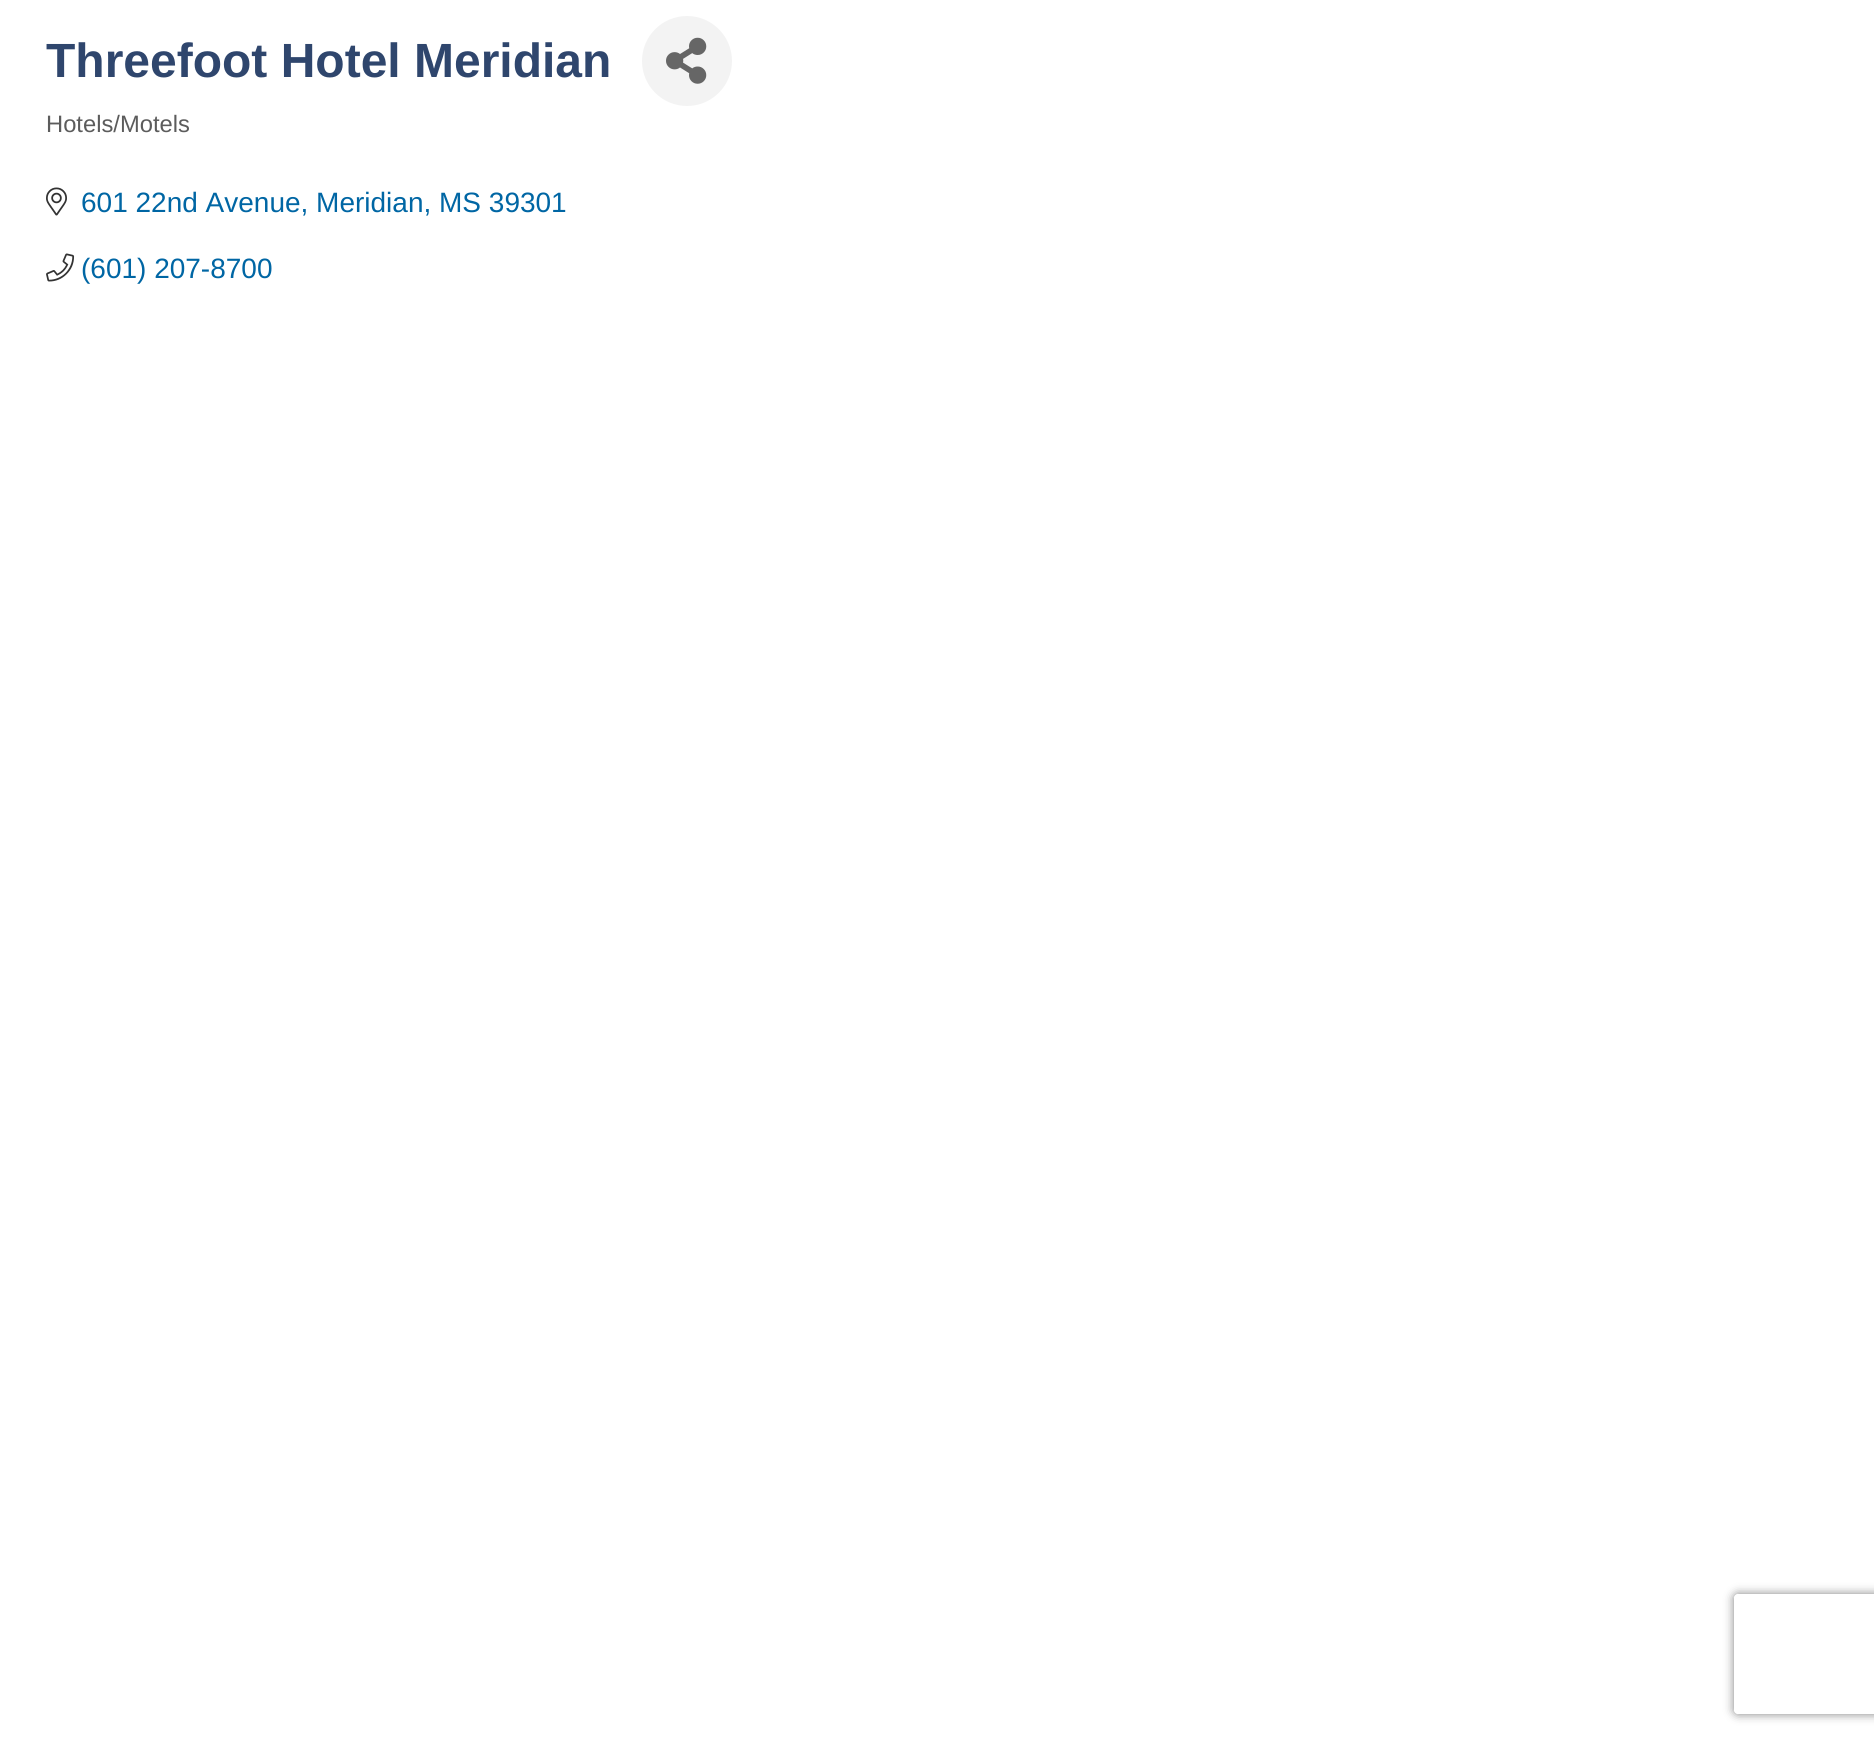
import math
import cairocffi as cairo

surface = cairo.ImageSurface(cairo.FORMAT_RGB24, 1874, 1742)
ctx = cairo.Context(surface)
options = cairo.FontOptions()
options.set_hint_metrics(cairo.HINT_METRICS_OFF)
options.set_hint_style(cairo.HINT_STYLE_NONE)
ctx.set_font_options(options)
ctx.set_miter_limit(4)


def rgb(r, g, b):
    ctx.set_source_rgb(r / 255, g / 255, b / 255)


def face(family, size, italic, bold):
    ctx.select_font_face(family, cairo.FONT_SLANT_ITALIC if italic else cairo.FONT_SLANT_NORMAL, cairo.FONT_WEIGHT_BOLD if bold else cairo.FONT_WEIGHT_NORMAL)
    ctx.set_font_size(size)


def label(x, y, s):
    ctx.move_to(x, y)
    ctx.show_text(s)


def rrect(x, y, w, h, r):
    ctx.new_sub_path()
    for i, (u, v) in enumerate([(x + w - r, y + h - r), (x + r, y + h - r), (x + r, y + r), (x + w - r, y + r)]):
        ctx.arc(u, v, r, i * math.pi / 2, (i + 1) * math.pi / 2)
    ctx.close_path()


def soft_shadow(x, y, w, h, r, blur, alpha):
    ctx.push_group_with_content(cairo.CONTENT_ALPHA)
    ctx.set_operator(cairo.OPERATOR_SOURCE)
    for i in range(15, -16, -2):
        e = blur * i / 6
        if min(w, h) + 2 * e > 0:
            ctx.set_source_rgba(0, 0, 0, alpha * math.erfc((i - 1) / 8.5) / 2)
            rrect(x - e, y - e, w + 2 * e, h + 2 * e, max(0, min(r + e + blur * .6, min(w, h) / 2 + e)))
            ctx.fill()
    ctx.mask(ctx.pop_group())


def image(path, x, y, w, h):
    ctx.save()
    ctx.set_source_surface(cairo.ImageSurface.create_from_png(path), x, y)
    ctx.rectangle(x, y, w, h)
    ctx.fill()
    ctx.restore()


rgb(255, 255, 255)
ctx.paint()
face('Liberation Sans', 48, 0, 1)
rgb(47, 70, 109)
label(46, 77, 'Threefoot Hotel Meridian')
rgb(243, 243, 243)
ctx.new_path()
ctx.arc(687, 61, 45, 0, 2 * math.pi)
ctx.fill()
image('image0.png', 666, 37, 41, 47)
face('Liberation Sans', 23.75, 0, 0)
rgb(92, 92, 92)
label(46, 132, 'Hotels/Motels')
image('image1.png', 46, 187, 21, 29)
face('Liberation Sans', 28, 0, 0)
rgb(0, 102, 164)
label(81, 212, '601 22nd Avenue, Meridian, MS 39301')
image('image2.png', 46, 253, 29, 29)
label(81, 278, '(601) 207-8700')
ctx.save()
ctx.set_fill_rule(cairo.FILL_RULE_EVEN_ODD)
ctx.new_path()
ctx.move_to(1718, 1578)
ctx.line_to(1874, 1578)
ctx.line_to(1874, 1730)
ctx.line_to(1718, 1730)
ctx.close_path()
ctx.move_to(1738, 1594)
ctx.line_to(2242, 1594)
ctx.curve_to(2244, 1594, 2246, 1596, 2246, 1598)
ctx.line_to(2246, 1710)
ctx.curve_to(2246, 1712, 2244, 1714, 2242, 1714)
ctx.line_to(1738, 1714)
ctx.curve_to(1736, 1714, 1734, 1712, 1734, 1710)
ctx.line_to(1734, 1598)
ctx.curve_to(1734, 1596, 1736, 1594, 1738, 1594)
ctx.close_path()
ctx.clip()
rgb(128, 128, 128)
soft_shadow(1734, 1594, 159, 120, 4, 5, 1)
ctx.restore()
surface.write_to_png('render.png')
